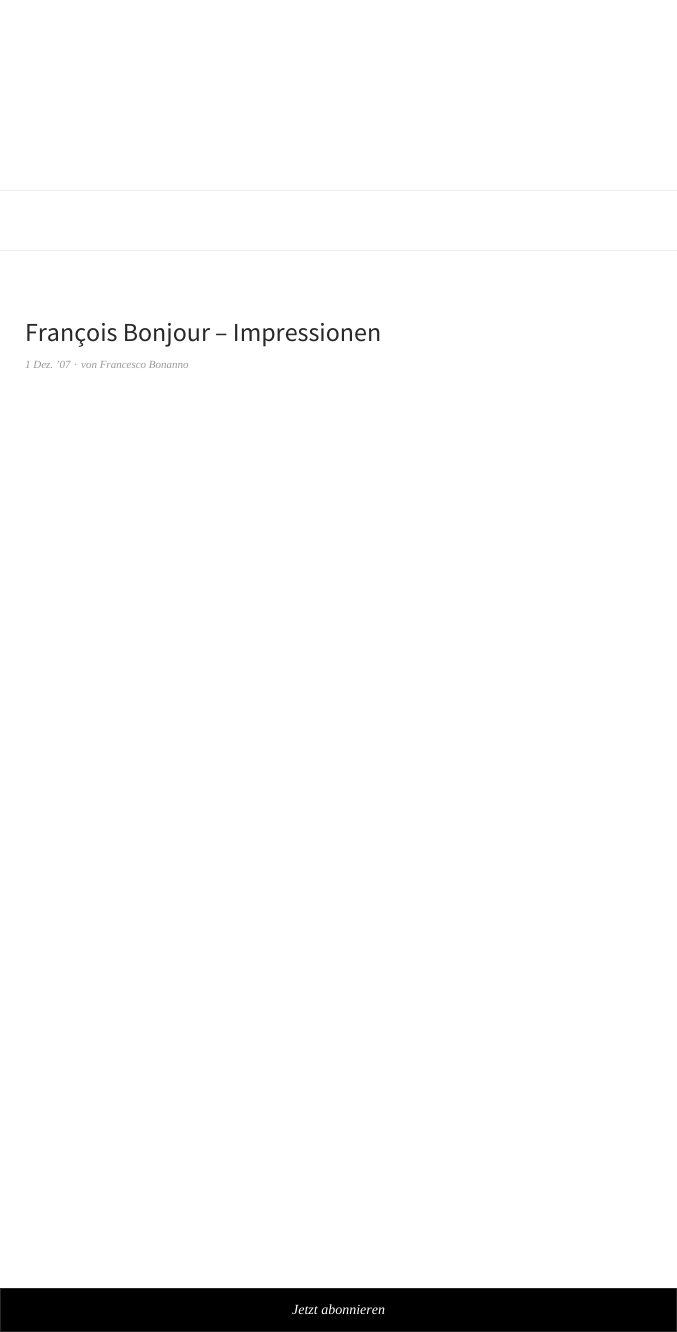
import math
import cairocffi as cairo

surface = cairo.ImageSurface(cairo.FORMAT_RGB24, 677, 1332)
ctx = cairo.Context(surface)
options = cairo.FontOptions()
options.set_hint_metrics(cairo.HINT_METRICS_OFF)
options.set_hint_style(cairo.HINT_STYLE_NONE)
ctx.set_font_options(options)
ctx.set_miter_limit(4)


def rgb(r, g, b):
    ctx.set_source_rgb(r / 255, g / 255, b / 255)


def face(family, size, italic, bold):
    ctx.select_font_face(family, cairo.FONT_SLANT_ITALIC if italic else cairo.FONT_SLANT_NORMAL, cairo.FONT_WEIGHT_BOLD if bold else cairo.FONT_WEIGHT_NORMAL)
    ctx.set_font_size(size)


def label(x, y, s):
    ctx.move_to(x, y)
    ctx.show_text(s)


def rect(x, y, w, h):
    ctx.rectangle(x, y, w, h)
    ctx.fill()


rgb(255, 255, 255)
ctx.paint()
rgb(237, 237, 238)
rect(0, 190, 677, 1)
rect(0, 250, 677, 1)
face('Source Sans Pro', 26, 0, 0)
rgb(40, 40, 40)
label(25, 341, 'François Bonjour – Impressionen')
face('Liberation Serif', 11, 1, 0)
rgb(153, 153, 153)
label(25, 368, '1 Dez. ’07')
label(74, 368, '∙')
label(81, 368, 'von Francesco Bonanno')
rgb(0, 0, 0)
ctx.rectangle(0.5, 1288.5, 676, 43)
ctx.fill_preserve()
rgb(40, 40, 40)
ctx.set_line_width(1)
ctx.stroke()
face('Liberation Serif', 14, 1, 0)
rgb(255, 255, 255)
label(292, 1314, 'Jetzt abonnieren')
surface.write_to_png('render.png')
